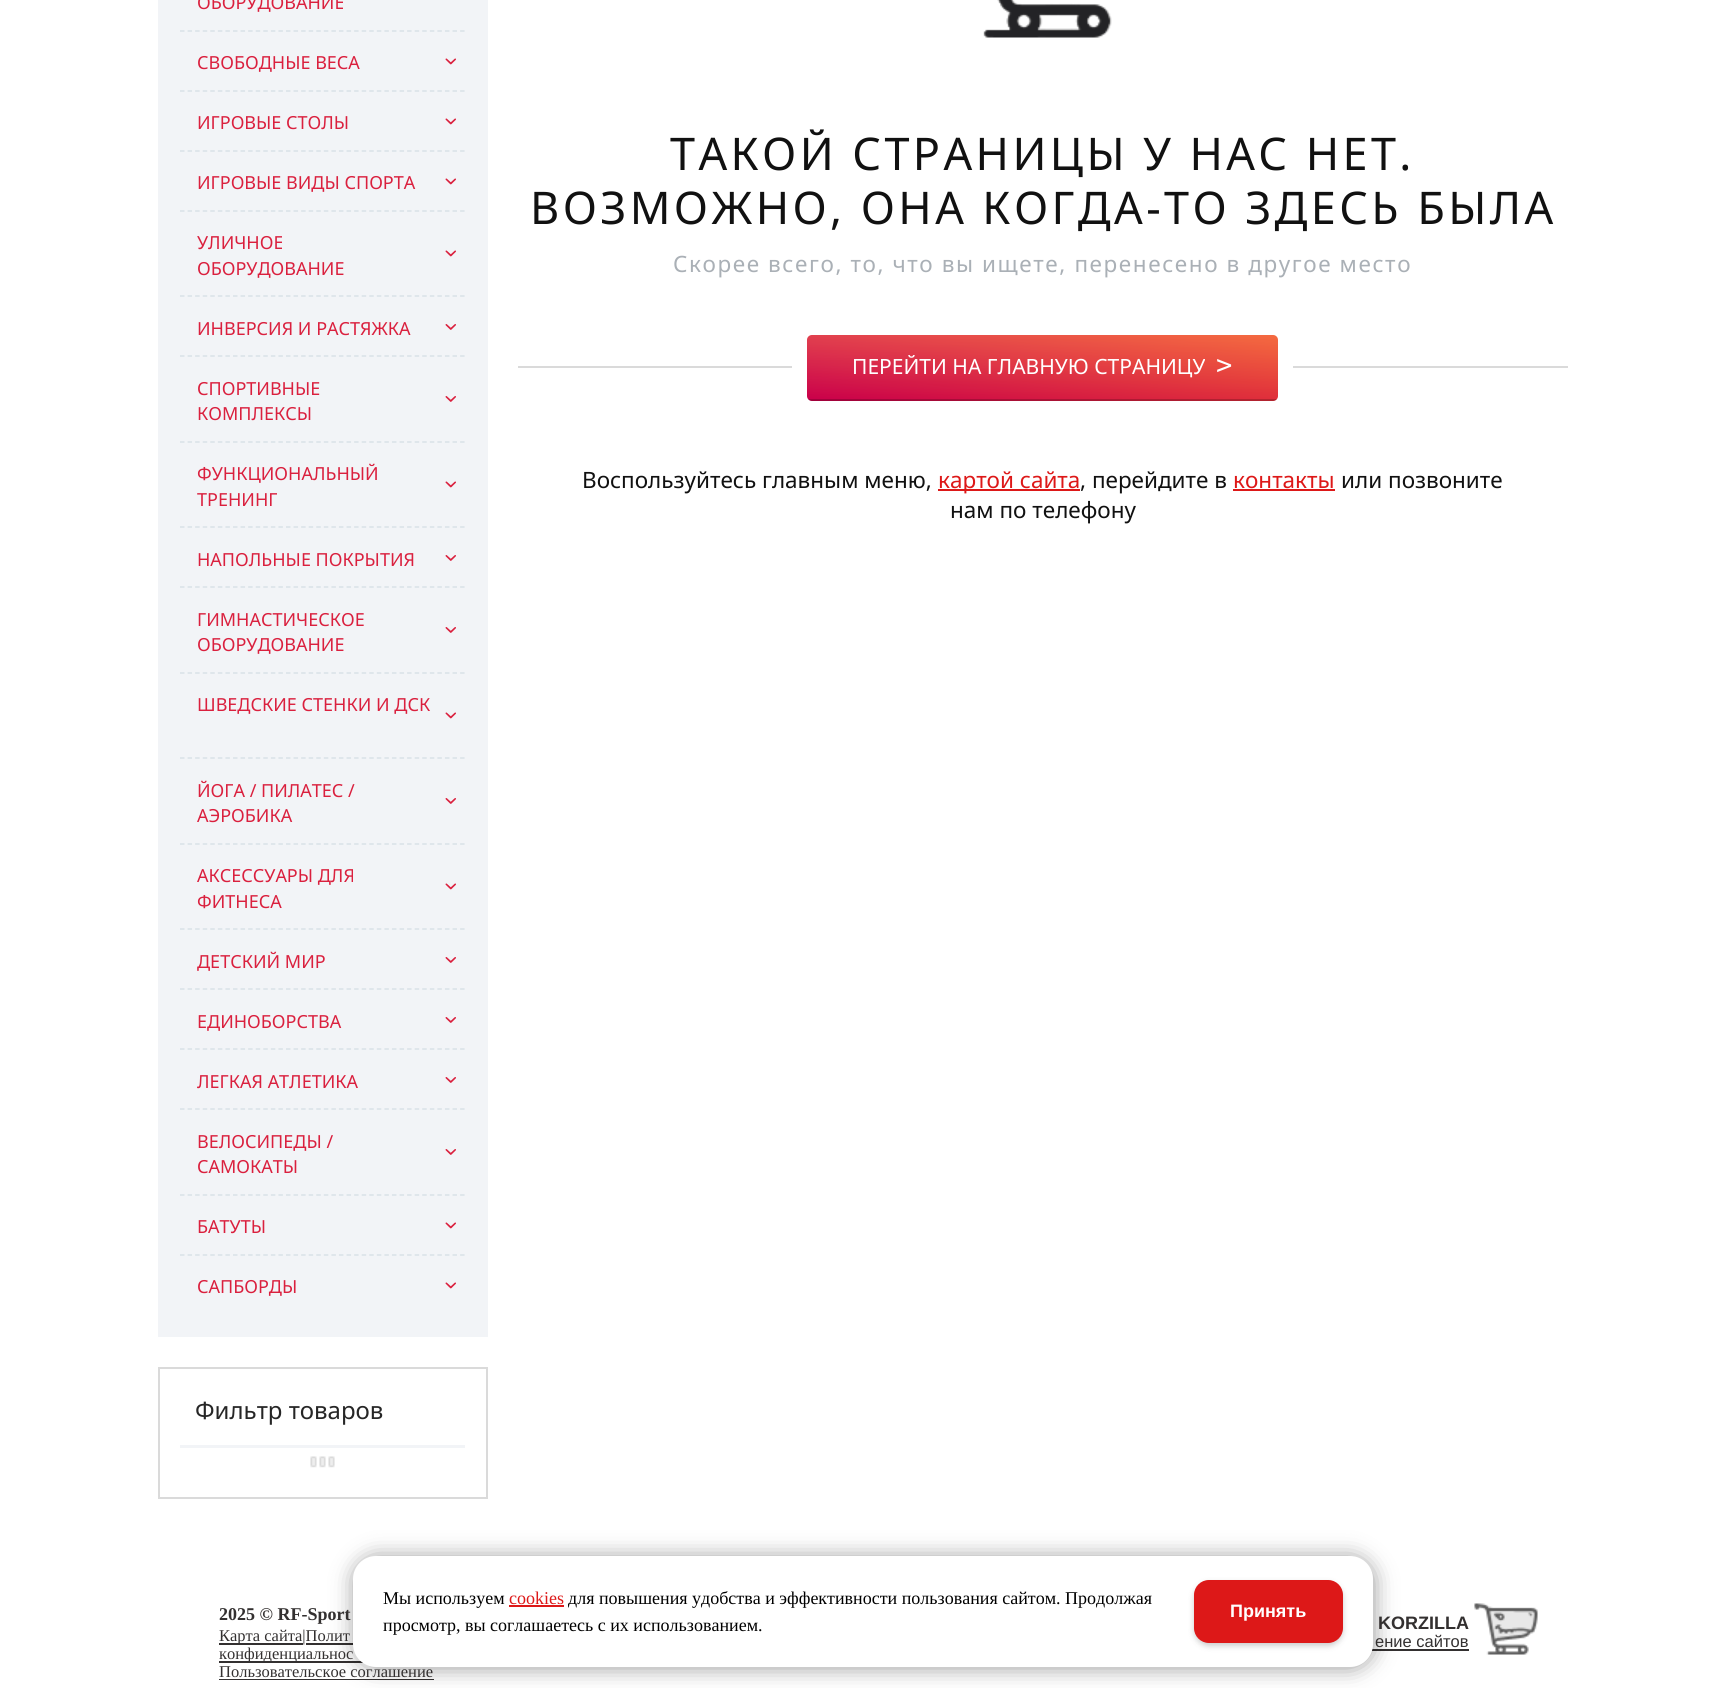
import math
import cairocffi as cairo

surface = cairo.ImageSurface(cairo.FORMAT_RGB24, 1725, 1688)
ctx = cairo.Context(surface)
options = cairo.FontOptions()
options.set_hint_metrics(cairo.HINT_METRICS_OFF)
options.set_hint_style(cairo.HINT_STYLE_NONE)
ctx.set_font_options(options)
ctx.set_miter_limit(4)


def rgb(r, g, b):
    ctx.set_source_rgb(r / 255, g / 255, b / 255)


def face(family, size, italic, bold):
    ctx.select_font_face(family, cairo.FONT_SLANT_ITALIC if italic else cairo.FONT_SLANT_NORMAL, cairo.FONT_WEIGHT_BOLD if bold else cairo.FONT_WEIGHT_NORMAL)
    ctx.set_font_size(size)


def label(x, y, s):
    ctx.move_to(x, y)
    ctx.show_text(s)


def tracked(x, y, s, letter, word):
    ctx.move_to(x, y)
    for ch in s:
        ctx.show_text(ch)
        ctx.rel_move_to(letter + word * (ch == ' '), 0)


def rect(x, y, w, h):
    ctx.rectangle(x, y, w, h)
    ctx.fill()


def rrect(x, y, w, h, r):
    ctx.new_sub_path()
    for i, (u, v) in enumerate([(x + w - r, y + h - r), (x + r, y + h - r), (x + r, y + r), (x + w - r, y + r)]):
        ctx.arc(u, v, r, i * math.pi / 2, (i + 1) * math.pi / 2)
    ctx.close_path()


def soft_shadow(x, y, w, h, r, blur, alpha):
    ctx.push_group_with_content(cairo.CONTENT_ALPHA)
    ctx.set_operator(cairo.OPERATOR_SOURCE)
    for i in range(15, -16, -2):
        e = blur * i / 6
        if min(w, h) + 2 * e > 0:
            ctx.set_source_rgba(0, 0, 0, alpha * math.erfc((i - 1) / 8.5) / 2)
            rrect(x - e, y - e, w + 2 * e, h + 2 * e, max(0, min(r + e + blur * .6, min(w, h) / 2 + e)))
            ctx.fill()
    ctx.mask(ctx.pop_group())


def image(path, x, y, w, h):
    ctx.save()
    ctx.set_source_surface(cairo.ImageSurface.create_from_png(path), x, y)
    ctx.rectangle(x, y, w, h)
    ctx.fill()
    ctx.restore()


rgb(255, 255, 255)
ctx.paint()
rgb(242, 244, 247)
rect(158, 0, 330, 1337)
face('Noto Sans', 18, 0, 0)
rgb(218, 32, 62)
label(197, 9, 'ОБОРУДОВАНИЕ')
ctx.new_path()
ctx.move_to(180, 31)
ctx.line_to(465, 31)
rgb(217, 226, 231)
ctx.set_line_width(1.5)
ctx.set_dash([4.5, 3.07])
ctx.stroke()
rgb(218, 32, 62)
label(197, 69, 'СВОБОДНЫЕ ВЕСА')
image('image0.png', 445, 58, 11, 7)
ctx.new_path()
ctx.move_to(180, 91)
ctx.line_to(465, 91)
rgb(217, 226, 231)
ctx.stroke()
rgb(218, 32, 62)
label(197, 129, 'ИГРОВЫЕ СТОЛЫ')
image('image0.png', 445, 118, 11, 7)
ctx.new_path()
ctx.move_to(180, 151)
ctx.line_to(465, 151)
rgb(217, 226, 231)
ctx.stroke()
rgb(218, 32, 62)
label(197, 189, 'ИГРОВЫЕ ВИДЫ СПОРТА')
image('image0.png', 445, 178, 11, 7)
ctx.new_path()
ctx.move_to(180, 211)
ctx.line_to(465, 211)
rgb(217, 226, 231)
ctx.stroke()
rgb(218, 32, 62)
label(197, 249, 'УЛИЧНОЕ')
label(197, 275, 'ОБОРУДОВАНИЕ')
image('image0.png', 445, 250, 11, 7)
ctx.new_path()
ctx.move_to(180, 296)
ctx.line_to(465, 296)
rgb(217, 226, 231)
ctx.stroke()
rgb(218, 32, 62)
label(197, 335, 'ИНВЕРСИЯ И РАСТЯЖКА')
image('image1.png', 445, 324, 11, 6)
ctx.new_path()
ctx.move_to(180, 356)
ctx.line_to(465, 356)
rgb(217, 226, 231)
ctx.stroke()
rgb(218, 32, 62)
label(197, 395, 'СПОРТИВНЫЕ')
label(197, 420, 'КОМПЛЕКСЫ')
image('image1.png', 445, 396, 11, 6)
ctx.new_path()
ctx.move_to(180, 442)
ctx.line_to(465, 442)
rgb(217, 226, 231)
ctx.stroke()
rgb(218, 32, 62)
label(197, 480, 'ФУНКЦИОНАЛЬНЫЙ')
label(197, 506, 'ТРЕНИНГ')
image('image0.png', 445, 481, 11, 7)
ctx.new_path()
ctx.move_to(180, 527)
ctx.line_to(465, 527)
rgb(217, 226, 231)
ctx.stroke()
rgb(218, 32, 62)
label(197, 566, 'НАПОЛЬНЫЕ ПОКРЫТИЯ')
image('image1.png', 445, 555, 11, 6)
ctx.new_path()
ctx.move_to(180, 587)
ctx.line_to(465, 587)
rgb(217, 226, 231)
ctx.stroke()
rgb(218, 32, 62)
label(197, 626, 'ГИМНАСТИЧЕСКОЕ')
label(197, 651, 'ОБОРУДОВАНИЕ')
image('image1.png', 445, 627, 11, 6)
ctx.new_path()
ctx.move_to(180, 673)
ctx.line_to(465, 673)
rgb(217, 226, 231)
ctx.stroke()
rgb(218, 32, 62)
label(197, 711, 'ШВЕДСКИЕ СТЕНКИ И ДСК')
image('image0.png', 445, 712, 11, 7)
ctx.new_path()
ctx.move_to(180, 758)
ctx.line_to(465, 758)
rgb(217, 226, 231)
ctx.stroke()
rgb(218, 32, 62)
label(197, 797, 'ЙОГА / ПИЛАТЕС /')
label(197, 822, 'АЭРОБИКА')
image('image1.png', 445, 798, 11, 6)
ctx.new_path()
ctx.move_to(180, 844)
ctx.line_to(465, 844)
rgb(217, 226, 231)
ctx.stroke()
rgb(218, 32, 62)
label(197, 882, 'АКСЕССУАРЫ ДЛЯ')
label(197, 908, 'ФИТНЕСА')
image('image0.png', 445, 883, 11, 7)
ctx.new_path()
ctx.move_to(180, 929)
ctx.line_to(465, 929)
rgb(217, 226, 231)
ctx.stroke()
rgb(218, 32, 62)
label(197, 968, 'ДЕТСКИЙ МИР')
image('image1.png', 445, 957, 11, 6)
ctx.new_path()
ctx.move_to(180, 989)
ctx.line_to(465, 989)
rgb(217, 226, 231)
ctx.stroke()
rgb(218, 32, 62)
label(197, 1028, 'ЕДИНОБОРСТВА')
image('image1.png', 445, 1017, 11, 6)
ctx.new_path()
ctx.move_to(180, 1049)
ctx.line_to(465, 1049)
rgb(217, 226, 231)
ctx.stroke()
rgb(218, 32, 62)
label(197, 1088, 'ЛЕГКАЯ АТЛЕТИКА')
image('image1.png', 445, 1077, 11, 6)
ctx.new_path()
ctx.move_to(180, 1109)
ctx.line_to(465, 1109)
rgb(217, 226, 231)
ctx.stroke()
rgb(218, 32, 62)
label(197, 1148, 'ВЕЛОСИПЕДЫ /')
label(197, 1173, 'САМОКАТЫ')
image('image1.png', 445, 1149, 11, 6)
ctx.new_path()
ctx.move_to(180, 1195)
ctx.line_to(465, 1195)
rgb(217, 226, 231)
ctx.stroke()
rgb(218, 32, 62)
label(197, 1233, 'БАТУТЫ')
image('image0.png', 445, 1222, 11, 7)
ctx.new_path()
ctx.move_to(180, 1255)
ctx.line_to(465, 1255)
rgb(217, 226, 231)
ctx.stroke()
rgb(218, 32, 62)
label(197, 1293, 'САПБОРДЫ')
image('image0.png', 445, 1282, 11, 7)
ctx.rectangle(159, 1368, 328, 130)
rgb(218, 218, 218)
ctx.set_line_width(2)
ctx.set_dash([])
ctx.stroke()
rgb(242, 244, 247)
rect(180, 1445, 285, 3)
face('Noto Sans', 24, 0, 0)
rgb(38, 38, 38)
label(195, 1419, 'Фильтр товаров')
image('image2.png', 310, 1456, 25, 12)
image('image3.png', 983, 0, 129, 38)
face('Noto Sans', 45, 0, 0)
rgb(17, 17, 17)
tracked(670, 170, 'ТАКОЙ СТРАНИЦЫ У НАС НЕТ.', 3.4, 0)
tracked(530, 224, 'ВОЗМОЖНО, ОНА КОГДА-ТО ЗДЕСЬ БЫЛА', 3.4, 0)
face('Noto Sans', 22.5, 0, 0)
rgb(170, 176, 182)
tracked(673, 272, 'Скорее всего, то, что вы ищете, перенесено в другое место', 1.58, 0)
rgb(218, 218, 218)
rect(518, 366, 1050, 2)
rgb(255, 255, 255)
rect(792, 366, 501, 2)
gradient = cairo.LinearGradient(1052, 303, 1033, 432)
gradient.add_color_stop_rgba(0, 0.953, 0.349, 0.169, 1)
gradient.add_color_stop_rgba(1, 0.792, 0, 0.29, 1)
ctx.set_source(gradient)
rrect(807, 335, 471, 66, 5)
ctx.fill()
gradient = cairo.LinearGradient(1043, 334, 1043, 401)
gradient.add_color_stop_rgba(0, 1, 1, 1, 0.1)
gradient.add_color_stop_rgba(1, 1, 1, 1, 0)
ctx.set_source(gradient)
rrect(807, 335, 471, 66, 5)
ctx.fill()
ctx.save()
rrect(807, 335, 471, 66, 5)
ctx.clip()
ctx.set_source_rgba(0, 0, 0, 0.2)
rect(807, 399, 471, 2)
ctx.restore()
face('Noto Sans', 21, 0, 0)
rgb(255, 255, 255)
label(852, 374, 'ПЕРЕЙТИ НА ГЛАВНУЮ СТРАНИЦУ')
face('DejaVu Sans Mono', 27, 0, 0)
label(1216, 374, '>')
face('Noto Sans', 22.5, 0, 0)
rgb(17, 17, 17)
label(582, 488, 'Воспользуйтесь главным меню,')
rgb(221, 24, 24)
rect(938, 489, 142, 2)
label(938, 488, 'картой сайта')
rgb(17, 17, 17)
label(1080, 488, ', перейдите в')
rgb(221, 24, 24)
label(1233, 488, 'контакты')
rect(1233, 489, 102, 2)
rgb(17, 17, 17)
label(1341, 488, 'или позвоните')
label(950, 518, 'нам по телефону')
rgb(51, 48, 48)
rect(306, 1643, 48, 2)
rect(219, 1661, 150, 2)
rect(219, 1679, 215, 1)
rect(1371, 1649, 98, 2)
rgb(0, 0, 0)
soft_shadow(354, 1557, 1020, 111, 23, 11, 0.4)
face('Liberation Serif', 16.5, 0, 0)
rgb(51, 48, 48)
label(219, 1677, 'Пользовательское соглашение')
rgb(255, 255, 255)
rrect(353, 1556, 1020, 111, 23)
ctx.fill()
face('Liberation Serif', 18, 0, 0)
rgb(0, 0, 0)
label(383, 1604, 'Мы используем')
rgb(221, 24, 24)
label(509, 1604, 'cookies')
rect(509, 1605, 55, 2)
rgb(0, 0, 0)
label(568, 1604, 'для повышения удобства и эффективности пользования сайтом. Продолжая')
label(383, 1631, 'просмотр, вы соглашаетесь с их использованием.')
rgb(0, 0, 0)
soft_shadow(1194, 1583, 149, 63, 15, 3, 0.2)
rgb(221, 24, 24)
rrect(1194, 1580, 149, 63, 15)
ctx.fill()
face('Liberation Sans', 18, 0, 1)
rgb(255, 255, 255)
label(1230, 1617, 'Принять')
face('Liberation Serif', 18, 0, 1)
rgb(51, 48, 48)
label(219, 1620, '2025 © RF-Sport')
rect(219, 1643, 84, 2)
face('Liberation Serif', 16.5, 0, 0)
label(219, 1641, 'Карта сайта|Полит')
label(219, 1659, 'конфиденциальнос')
face('Liberation Sans', 18, 0, 1)
label(1378, 1629, 'KORZILLA')
image('image4.png', 1474, 1603, 64, 52)
face('Liberation Sans', 16.5, 0, 0)
label(1375, 1647, 'ение сайтов')
surface.write_to_png('render.png')
